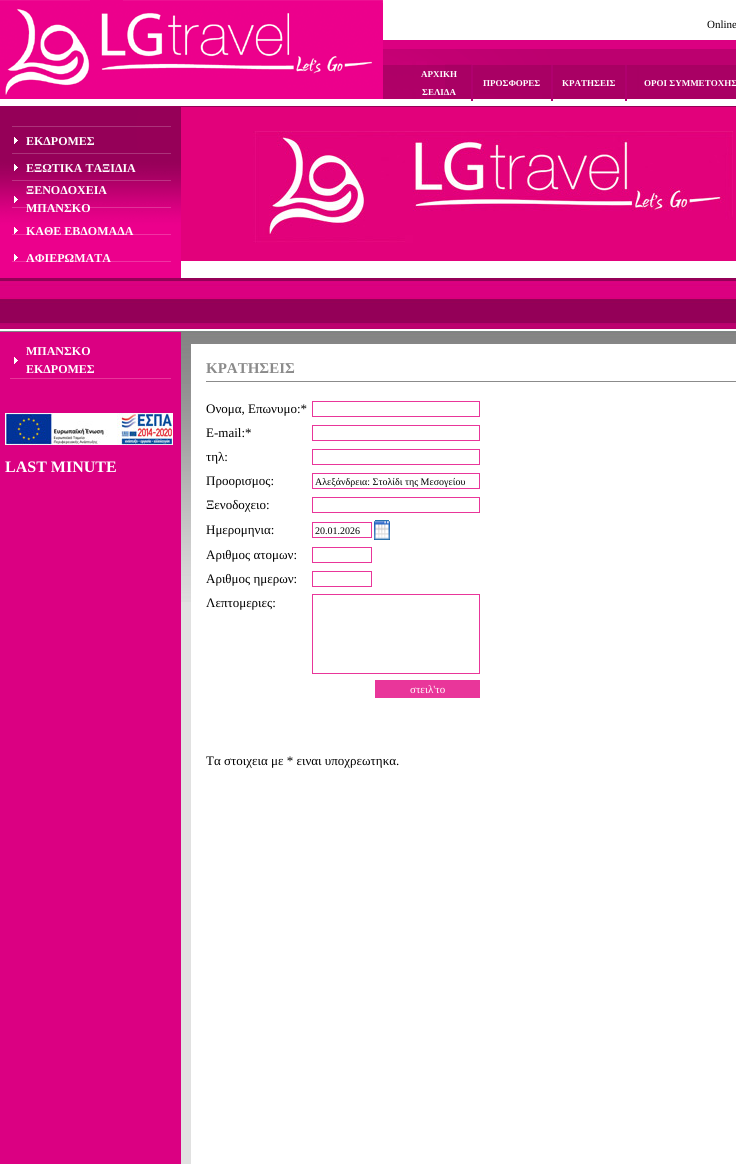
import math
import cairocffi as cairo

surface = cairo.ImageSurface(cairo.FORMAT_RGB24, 736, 1165)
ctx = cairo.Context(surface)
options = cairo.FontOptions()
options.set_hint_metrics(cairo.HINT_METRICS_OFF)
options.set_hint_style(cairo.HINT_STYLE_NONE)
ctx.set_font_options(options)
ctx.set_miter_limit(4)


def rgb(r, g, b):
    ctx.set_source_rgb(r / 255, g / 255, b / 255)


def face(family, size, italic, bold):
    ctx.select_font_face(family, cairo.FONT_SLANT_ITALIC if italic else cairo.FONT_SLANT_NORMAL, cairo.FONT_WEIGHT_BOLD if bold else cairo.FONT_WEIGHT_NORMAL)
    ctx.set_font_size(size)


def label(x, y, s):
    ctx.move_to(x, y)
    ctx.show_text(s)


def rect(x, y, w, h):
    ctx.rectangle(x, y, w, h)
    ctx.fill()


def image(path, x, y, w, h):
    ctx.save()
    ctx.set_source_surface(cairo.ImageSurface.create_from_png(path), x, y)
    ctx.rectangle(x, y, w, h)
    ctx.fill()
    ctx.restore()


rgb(225, 225, 225)
ctx.paint()
image('image0.png', 0, 278, 736, 324)
image('image1.png', 0, 0, 736, 278)
face('Liberation Serif', 11, 0, 0)
rgb(0, 0, 0)
label(707, 28, 'Online')
face('Liberation Serif', 9, 0, 1)
rgb(255, 255, 255)
label(421, 77, 'ΑΡΧΙΚΗ')
label(422, 95, 'ΣΕΛΙΔΑ')
rgb(176, 0, 111)
rect(471, 65, 2, 36)
rgb(255, 255, 255)
label(483, 86, 'ΠΡΟΣΦΟΡΕΣ')
rgb(176, 0, 111)
rect(551, 65, 2, 36)
rgb(255, 255, 255)
label(562, 86, 'ΚΡΑΤΗΣΕΙΣ')
rgb(176, 0, 111)
rect(625, 65, 2, 36)
rgb(255, 255, 255)
label(644, 86, 'ΟΡΟΙ ΣΥΜΜΕΤΟΧΗΣ')
image('image2.png', 14, 137, 4, 7)
face('Liberation Serif', 12, 0, 1)
label(26, 145, 'ΕΚΔΡΟΜΕΣ')
image('image3.png', 14, 164, 4, 7)
label(26, 172, 'ΕΞΩΤΙΚΑ ΤΑΞΙΔΙΑ')
image('image4.png', 14, 196, 4, 7)
label(26, 194, 'ΞΕΝΟΔΟΧΕΙΑ')
label(26, 212, 'ΜΠΑΝΣΚΟ')
image('image5.png', 14, 227, 4, 7)
label(26, 235, 'ΚΑΘΕ ΕΒΔΟΜΑΔΑ')
image('image5.png', 14, 254, 4, 7)
label(26, 262, 'ΑΦΙΕΡΩΜΑΤΑ')
image('image6.png', 181, 107, 555, 154)
rgb(219, 0, 130)
rect(0, 332, 181, 832)
image('image7.png', 14, 357, 4, 7)
rgb(255, 255, 255)
label(26, 355, 'ΜΠΑΝΣΚΟ')
label(26, 373, 'ΕΚΔΡΟΜΕΣ')
rgb(233, 54, 154)
rect(10, 378, 161, 1)
image('image8.png', 5, 413, 168, 32)
face('Liberation Serif', 16, 0, 1)
rgb(255, 255, 255)
label(5, 472, 'LAST MINUTE')
rect(191, 344, 545, 15)
rect(191, 359, 545, 22)
face('Liberation Serif', 15, 0, 1)
rgb(139, 139, 139)
label(206, 373, 'ΚΡΑΤΗΣΕΙΣ')
rgb(255, 255, 255)
rect(191, 381, 15, 783)
rgb(139, 139, 139)
rect(206, 381, 530, 1)
rgb(255, 255, 255)
rect(206, 382, 530, 782)
face('Liberation Serif', 13, 0, 0)
rgb(0, 0, 0)
label(206, 413, 'Ονομα, Επωνυμο:*')
ctx.rectangle(312.5, 401.5, 167, 15)
rgb(233, 54, 154)
ctx.set_line_width(1)
ctx.stroke()
rgb(0, 0, 0)
label(206, 437, 'E-mail:*')
ctx.rectangle(312.5, 425.5, 167, 15)
rgb(233, 54, 154)
ctx.stroke()
rgb(0, 0, 0)
label(206, 461, 'τηλ:')
ctx.rectangle(312.5, 449.5, 167, 15)
rgb(233, 54, 154)
ctx.stroke()
rgb(0, 0, 0)
label(206, 485, 'Προορισμος:')
ctx.rectangle(312.5, 473.5, 167, 15)
rgb(233, 54, 154)
ctx.stroke()
ctx.save()
ctx.rectangle(315, 476, 162, 11)
ctx.clip()
face('Liberation Serif', 10, 0, 0)
rgb(0, 0, 0)
label(315, 485, 'Αλεξάνδρεια: Στολίδι της Μεσογείου')
ctx.restore()
rgb(0, 0, 0)
label(206, 509, 'Ξενοδοχειο:')
ctx.rectangle(312.5, 497.5, 167, 15)
rgb(233, 54, 154)
ctx.stroke()
rgb(0, 0, 0)
label(206, 534, 'Ημερομηνια:')
ctx.rectangle(312.5, 522.5, 59, 15)
rgb(233, 54, 154)
ctx.stroke()
face('Liberation Serif', 10, 0, 0)
rgb(0, 0, 0)
label(315, 534, '20.01.2026')
image('image9.png', 374, 520, 16, 20)
face('Liberation Serif', 13, 0, 0)
label(206, 559, 'Αριθμος ατομων:')
ctx.rectangle(312.5, 547.5, 59, 15)
rgb(233, 54, 154)
ctx.stroke()
rgb(0, 0, 0)
label(206, 583, 'Αριθμος ημερων:')
ctx.rectangle(312.5, 571.5, 59, 15)
rgb(233, 54, 154)
ctx.stroke()
rgb(0, 0, 0)
label(206, 607, 'Λεπτομεριες:')
ctx.rectangle(312.5, 594.5, 167, 79)
rgb(233, 54, 154)
ctx.stroke()
rect(375, 680, 105, 18)
face('Liberation Serif', 11, 0, 0)
rgb(255, 255, 255)
label(410, 693, 'στειλ\'το')
face('Liberation Serif', 13, 0, 0)
rgb(0, 0, 0)
label(206, 765, 'Τα στοιχεια με * ειναι υποχρεωτηκα.')
rgb(255, 255, 255)
rect(0, 1164, 736, 1)
surface.write_to_png('render.png')
